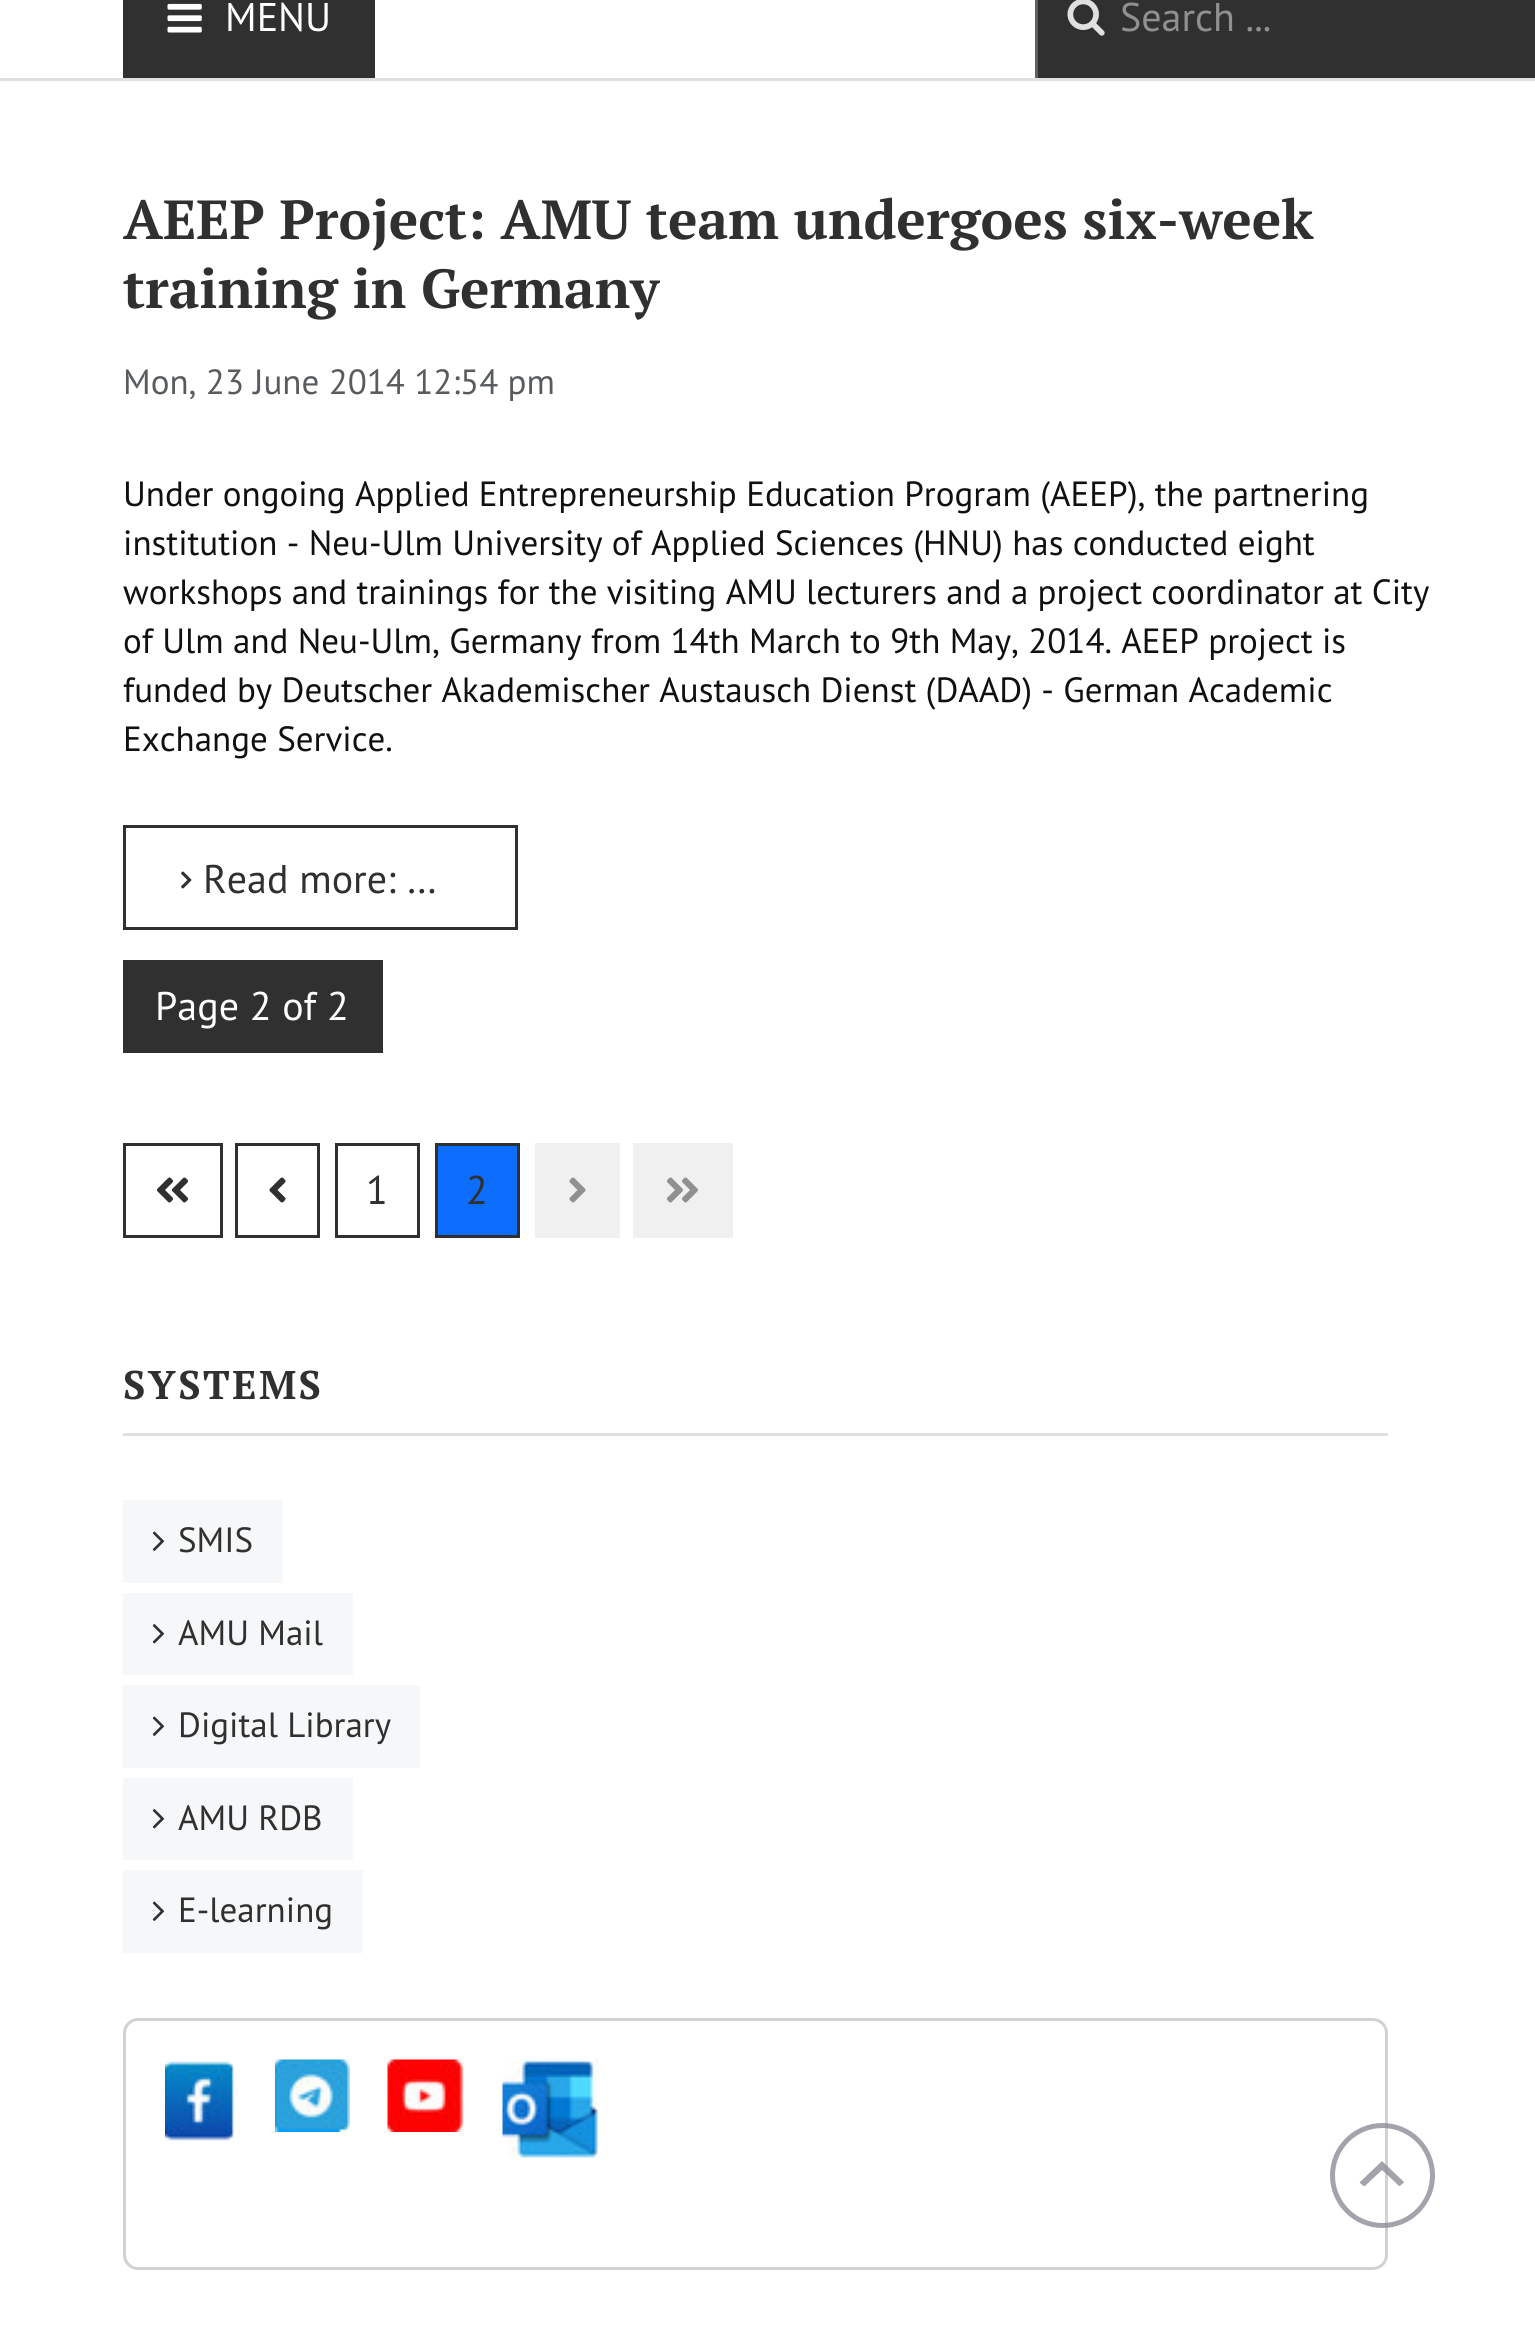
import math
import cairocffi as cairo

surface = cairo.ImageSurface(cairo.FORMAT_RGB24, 1535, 2326)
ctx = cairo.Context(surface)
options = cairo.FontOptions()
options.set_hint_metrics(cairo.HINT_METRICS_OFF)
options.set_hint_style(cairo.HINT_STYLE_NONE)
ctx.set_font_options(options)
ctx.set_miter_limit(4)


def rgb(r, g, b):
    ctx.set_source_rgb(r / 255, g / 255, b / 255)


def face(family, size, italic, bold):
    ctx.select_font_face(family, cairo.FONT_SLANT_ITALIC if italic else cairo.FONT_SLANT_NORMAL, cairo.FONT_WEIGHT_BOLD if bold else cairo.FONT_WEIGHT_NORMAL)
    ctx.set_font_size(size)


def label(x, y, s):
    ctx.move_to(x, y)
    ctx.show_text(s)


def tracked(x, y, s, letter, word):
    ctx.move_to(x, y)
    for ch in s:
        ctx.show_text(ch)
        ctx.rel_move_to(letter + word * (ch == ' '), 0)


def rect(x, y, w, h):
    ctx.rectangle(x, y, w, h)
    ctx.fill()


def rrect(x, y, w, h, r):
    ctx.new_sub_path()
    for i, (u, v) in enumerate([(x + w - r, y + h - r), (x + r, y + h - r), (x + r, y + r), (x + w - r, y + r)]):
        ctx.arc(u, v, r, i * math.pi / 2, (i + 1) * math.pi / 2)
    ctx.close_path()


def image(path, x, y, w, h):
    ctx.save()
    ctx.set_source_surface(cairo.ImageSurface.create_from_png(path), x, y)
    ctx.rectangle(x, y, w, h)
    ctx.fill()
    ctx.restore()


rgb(255, 255, 255)
ctx.paint()
rgb(224, 224, 224)
rect(0, 78, 1535, 3)
rgb(48, 48, 48)
rect(123, 0, 252, 78)
image('image0.png', 167, 3, 35, 30)
face('PT Sans', 40, 0, 0)
rgb(255, 255, 255)
label(225, 31, 'MENU')
rgb(48, 48, 48)
rect(1038, 0, 497, 78)
rgb(96, 96, 96)
rect(1035, 0, 3, 78)
image('image1.png', 1067, 0, 38, 36)
rgb(144, 144, 144)
label(1120, 31, 'Search ...')
face('PT Serif', 55, 0, 1)
rgb(48, 48, 48)
label(123, 239, 'AEEP Project: AMU team undergoes six-week')
label(123, 308, 'training in Germany')
face('PT Sans', 35, 0, 0)
rgb(89, 92, 95)
label(123, 394, 'Mon, 23 June 2014 12:54 pm')
rgb(16, 16, 16)
label(123, 506, 'Under ongoing Applied Entrepreneurship Education Program (AEEP), the partnering')
label(123, 555, 'institution - Neu-Ulm University of Applied Sciences (HNU) has conducted eight')
label(123, 604, 'workshops and trainings for the visiting AMU lecturers and a project coordinator at City')
label(123, 653, 'of Ulm and Neu-Ulm, Germany from 14th March to 9th May, 2014. AEEP project is')
label(123, 702, 'funded by Deutscher Akademischer Austausch Dienst (DAAD) - German Academic')
label(123, 751, 'Exchange Service.')
ctx.rectangle(124.5, 826.5, 392, 102)
rgb(48, 48, 48)
ctx.set_line_width(3)
ctx.stroke()
image('image2.png', 181, 871, 11, 18)
face('PT Sans', 40, 0, 0)
label(203, 893, 'Read more: …')
rect(123, 960, 260, 93)
rgb(255, 255, 255)
label(155, 1020, 'Page 2 of 2')
ctx.rectangle(124.5, 1144.5, 97, 92)
rgb(48, 48, 48)
ctx.stroke()
image('image3.png', 157, 1177, 31, 26)
ctx.rectangle(236.5, 1144.5, 82, 92)
ctx.stroke()
image('image4.png', 269, 1177, 17, 26)
ctx.rectangle(336.5, 1144.5, 82, 92)
ctx.stroke()
label(366, 1204, '1')
rgb(13, 110, 253)
ctx.rectangle(436.5, 1144.5, 82, 92)
ctx.fill_preserve()
rgb(48, 48, 48)
ctx.stroke()
label(466, 1204, '2')
rgb(240, 240, 240)
rect(535, 1143, 85, 95)
image('image5.png', 569, 1177, 17, 26)
rect(633, 1143, 100, 95)
image('image6.png', 667, 1177, 31, 26)
rgb(224, 224, 224)
rect(123, 1433, 1265, 3)
face('PT Serif', 40, 0, 1)
rgb(48, 48, 48)
tracked(123, 1399, 'SYSTEMS', 2.5, 0)
rgb(246, 247, 248)
rect(123, 1500, 160, 83)
image('image7.png', 152, 1531, 13, 20)
face('PT Sans', 35, 0, 0)
rgb(48, 48, 48)
label(178, 1552, 'SMIS')
rgb(246, 247, 248)
rect(123, 1593, 230, 82)
image('image8.png', 152, 1624, 13, 20)
rgb(48, 48, 48)
label(178, 1645, 'AMU Mail')
rgb(246, 247, 248)
rect(123, 1685, 297, 83)
image('image7.png', 152, 1716, 13, 20)
rgb(48, 48, 48)
label(178, 1737, 'Digital Library')
rgb(246, 247, 248)
rect(123, 1778, 230, 82)
image('image8.png', 152, 1809, 13, 20)
rgb(48, 48, 48)
label(178, 1830, 'AMU RDB')
rgb(246, 247, 248)
rect(123, 1870, 240, 83)
image('image7.png', 152, 1901, 13, 20)
rgb(48, 48, 48)
label(178, 1922, 'E-learning')
rrect(124.5, 2019.5, 1262, 249, 13.5)
rgb(210, 210, 210)
ctx.stroke()
image('image9.png', 165, 2061, 69, 80)
image('image10.png', 275, 2059, 75, 73)
image('image11.png', 387, 2059, 77, 73)
image('image12.png', 502, 2059, 96, 99)
ctx.arc(1382.5, 2175.5, 50, 0, 2 * math.pi)
ctx.set_source_rgba(0.549, 0.549, 0.588, 0.8)
ctx.set_line_width(5)
ctx.stroke()
ctx.new_path()
ctx.move_to(1382, 2170)
ctx.line_to(1368, 2183)
ctx.curve_to(1365, 2186, 1365, 2187, 1362, 2185)
ctx.curve_to(1362, 2184, 1359, 2183, 1360, 2182)
ctx.line_to(1382, 2161)
ctx.line_to(1404, 2182)
ctx.curve_to(1404, 2183, 1402, 2184, 1401, 2185)
ctx.curve_to(1399, 2187, 1399, 2186, 1396, 2183)
ctx.close_path()
ctx.fill()
surface.write_to_png('render.png')
